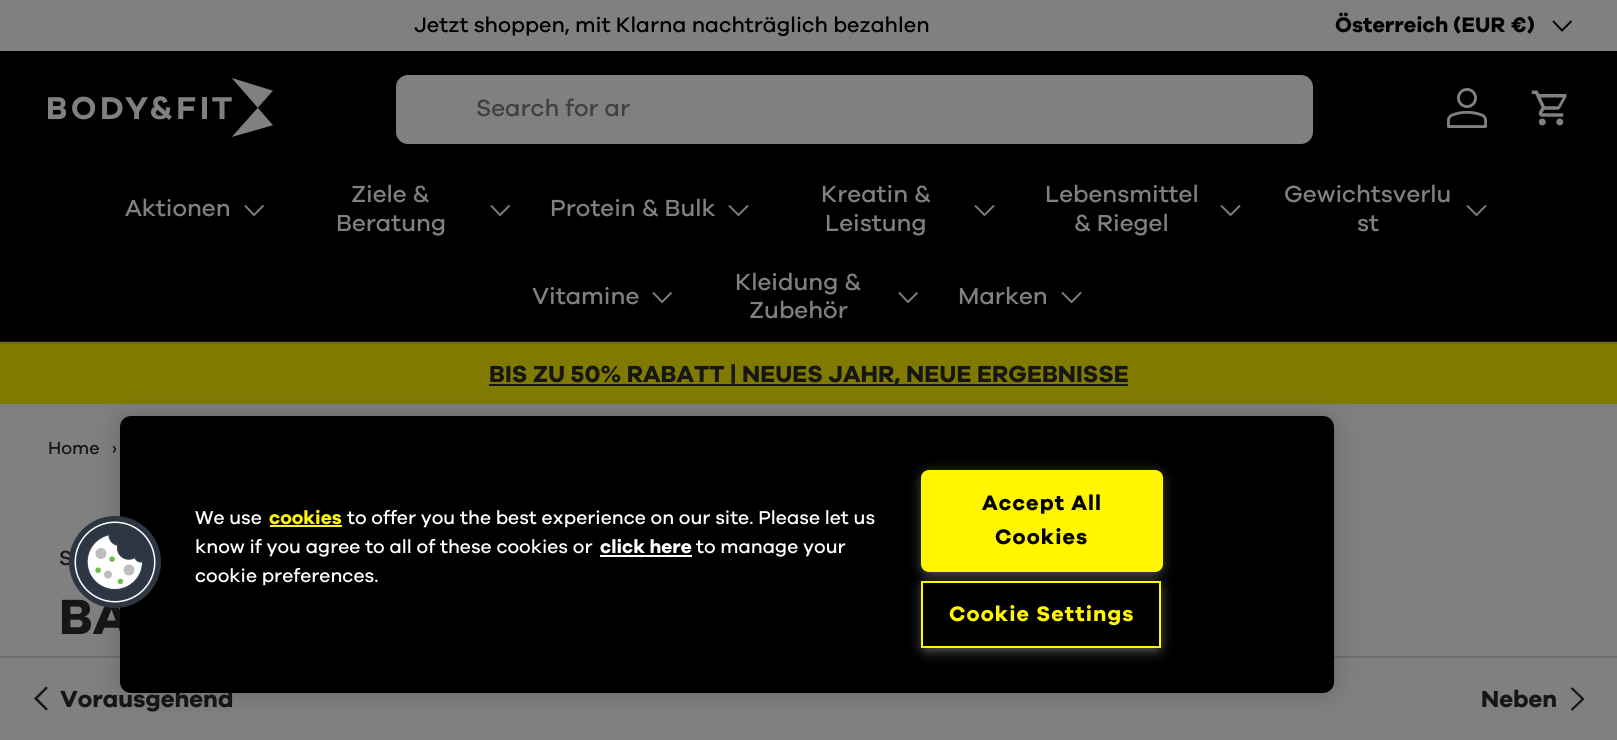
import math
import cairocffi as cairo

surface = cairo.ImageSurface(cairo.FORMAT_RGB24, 1617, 740)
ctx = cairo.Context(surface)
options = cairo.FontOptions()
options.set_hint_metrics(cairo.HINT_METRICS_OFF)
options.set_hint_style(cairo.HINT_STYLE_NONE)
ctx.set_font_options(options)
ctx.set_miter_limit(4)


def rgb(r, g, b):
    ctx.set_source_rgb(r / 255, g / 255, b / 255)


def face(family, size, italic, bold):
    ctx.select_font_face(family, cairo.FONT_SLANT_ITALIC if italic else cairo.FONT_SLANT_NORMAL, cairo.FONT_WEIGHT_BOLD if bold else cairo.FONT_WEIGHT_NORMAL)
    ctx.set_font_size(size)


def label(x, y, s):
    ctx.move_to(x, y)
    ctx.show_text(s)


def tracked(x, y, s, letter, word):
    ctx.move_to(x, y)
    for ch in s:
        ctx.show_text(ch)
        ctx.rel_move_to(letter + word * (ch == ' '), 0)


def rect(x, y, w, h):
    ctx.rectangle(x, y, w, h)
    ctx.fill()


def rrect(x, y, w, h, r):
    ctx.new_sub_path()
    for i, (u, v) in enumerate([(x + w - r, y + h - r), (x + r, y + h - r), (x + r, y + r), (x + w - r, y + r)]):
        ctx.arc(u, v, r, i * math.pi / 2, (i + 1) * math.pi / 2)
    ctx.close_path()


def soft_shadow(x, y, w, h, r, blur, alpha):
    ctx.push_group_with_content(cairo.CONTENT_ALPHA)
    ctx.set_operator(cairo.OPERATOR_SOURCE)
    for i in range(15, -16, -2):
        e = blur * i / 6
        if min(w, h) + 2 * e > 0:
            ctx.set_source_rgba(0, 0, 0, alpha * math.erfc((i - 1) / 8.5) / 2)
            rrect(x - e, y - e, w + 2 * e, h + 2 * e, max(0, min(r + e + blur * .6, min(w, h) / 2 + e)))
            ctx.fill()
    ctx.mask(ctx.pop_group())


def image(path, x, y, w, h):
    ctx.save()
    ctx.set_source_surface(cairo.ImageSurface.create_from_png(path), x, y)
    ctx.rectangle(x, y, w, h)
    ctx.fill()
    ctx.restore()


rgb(128, 128, 128)
ctx.paint()
face('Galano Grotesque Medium', 21.6, 0, 0)
rgb(0, 0, 0)
label(414, 32, 'Jetzt shoppen, mit Klarna nachträglich bezahlen')
face('Galano Grotesque', 21.6, 0, 1)
label(1335, 32, 'Österreich (EUR €)')
ctx.new_path()
ctx.move_to(1571.5, 21)
ctx.line_to(1562, 30.5)
ctx.line_to(1553, 21)
ctx.set_line_width(1.9)
ctx.stroke()
rect(0, 51, 1617, 290)
rgb(19, 19, 19)
rect(0, 341, 1617, 1)
image('image0.png', 48, 78, 225, 59)
rgb(128, 128, 128)
rrect(396, 75, 917, 69, 12)
ctx.fill()
face('Galano Grotesque Medium', 24, 0, 0)
rgb(64, 64, 64)
label(476, 116, 'Search for ar')
image('image1.png', 1447, 88, 40, 40)
image('image2.png', 1531, 90, 36, 36)
rgb(128, 128, 128)
label(125, 216, 'Aktionen')
ctx.new_path()
ctx.move_to(263.5, 205.5)
ctx.line_to(254, 215)
ctx.line_to(245, 205.5)
ctx.stroke()
label(351, 202, 'Ziele &')
ctx.new_path()
ctx.move_to(509.5, 205.5)
ctx.line_to(500, 215)
ctx.line_to(491, 205.5)
ctx.stroke()
label(336, 231, 'Beratung')
label(550, 216, 'Protein & Bulk')
ctx.new_path()
ctx.move_to(748, 205.5)
ctx.line_to(738.5, 215)
ctx.line_to(729, 205.5)
ctx.stroke()
label(821, 202, 'Kreatin &')
ctx.new_path()
ctx.move_to(994, 205.5)
ctx.line_to(984.5, 215)
ctx.line_to(975, 205.5)
ctx.stroke()
label(825, 231, 'Leistung')
label(1045, 202, 'Lebensmittel')
ctx.new_path()
ctx.move_to(1240, 205.5)
ctx.line_to(1230.5, 215)
ctx.line_to(1221, 205.5)
ctx.stroke()
label(1074, 231, '& Riegel')
label(1284, 202, 'Gewichtsverlu')
ctx.new_path()
ctx.move_to(1486, 205.5)
ctx.line_to(1476.5, 215)
ctx.line_to(1467, 205.5)
ctx.stroke()
label(1357, 231, 'st')
label(532, 304, 'Vitamine')
ctx.new_path()
ctx.move_to(671.5, 292.5)
ctx.line_to(662, 302)
ctx.line_to(653, 292.5)
ctx.stroke()
label(735, 290, 'Kleidung &')
ctx.new_path()
ctx.move_to(917.5, 292.5)
ctx.line_to(908, 302)
ctx.line_to(899, 292.5)
ctx.stroke()
label(749, 318, 'Zubehör')
label(958, 304, 'Marken')
ctx.new_path()
ctx.move_to(1081, 292.5)
ctx.line_to(1071.5, 302)
ctx.line_to(1062, 292.5)
ctx.stroke()
rgb(128, 123, 0)
rect(0, 344, 1617, 60)
rgb(112, 108, 3)
rect(0, 343, 1617, 1)
rgb(114, 111, 22)
rect(0, 342, 1617, 1)
rgb(21, 22, 21)
rect(489, 384, 639, 2)
face('Galano Grotesque', 24, 0, 1)
label(489, 382, 'BIS ZU 50% RABATT | NEUES JAHR, NEUE ERGEBNISSE')
face('Galano Grotesque Medium', 18, 0, 0)
label(48, 454, 'Home')
label(112, 454, '›')
face('Galano Grotesque Medium', 21, 0, 0)
label(59, 565, 'S')
face('Galano Grotesque', 51, 0, 1)
label(59, 634, 'BA')
rgb(112, 112, 112)
rect(0, 656, 1617, 2)
rgb(21, 22, 21)
ctx.new_path()
ctx.move_to(34, 698.5)
ctx.line_to(46, 686.5)
ctx.line_to(48, 688)
ctx.line_to(37.5, 698.5)
ctx.line_to(48, 709)
ctx.line_to(46, 710.5)
ctx.close_path()
ctx.fill()
face('Galano Grotesque', 24, 0, 1)
label(60, 707, 'Vorausgehend')
label(1481, 707, 'Neben')
ctx.new_path()
ctx.move_to(1571.5, 688)
ctx.line_to(1583, 699)
ctx.line_to(1571.5, 710)
ctx.set_line_width(2.2)
ctx.stroke()
rgb(0, 0, 0)
soft_shadow(120, 416, 1214, 277, 11, 13.5, 0.2)
rgb(0, 0, 0)
rrect(120, 416, 1214, 277, 11)
ctx.fill()
image('image3.png', 69, 516, 92, 92)
face('Galano Grotesque Medium', 19.2, 0, 0)
rgb(255, 255, 255)
label(195, 524, 'We use')
face('Galano Grotesque', 19.2, 0, 1)
rgb(255, 246, 0)
label(269, 524, 'cookies')
rect(270, 525, 72, 2)
face('Galano Grotesque Medium', 19.2, 0, 0)
rgb(255, 255, 255)
label(347, 524, 'to offer you the best experience on our site. Please let us')
label(195, 553, 'know if you agree to all of these cookies or')
face('Galano Grotesque', 19.2, 0, 1)
label(600, 553, 'click here')
rect(600, 555, 92, 2)
face('Galano Grotesque Medium', 19.2, 0, 0)
label(696, 553, 'to manage your')
label(195, 582, 'cookie preferences.')
rgb(153, 153, 153)
soft_shadow(926, 477, 232, 93, 3, 7.5, 1)
rgb(255, 246, 0)
rrect(922, 471, 240, 100, 7)
ctx.fill_preserve()
ctx.set_line_width(2)
ctx.stroke()
face('Galano Grotesque', 21.6, 0, 1)
rgb(0, 0, 0)
tracked(982, 510, 'Accept All', 1.1, 0)
tracked(995, 544, 'Cookies', 1.1, 0)
rgb(153, 153, 153)
soft_shadow(926, 588, 231, 59, 0, 7.5, 1)
rgb(0, 0, 0)
ctx.rectangle(922, 582, 238, 65)
ctx.fill_preserve()
rgb(255, 246, 0)
ctx.stroke()
tracked(949, 621, 'Cookie Settings', 1.1, 0)
surface.write_to_png('render.png')
